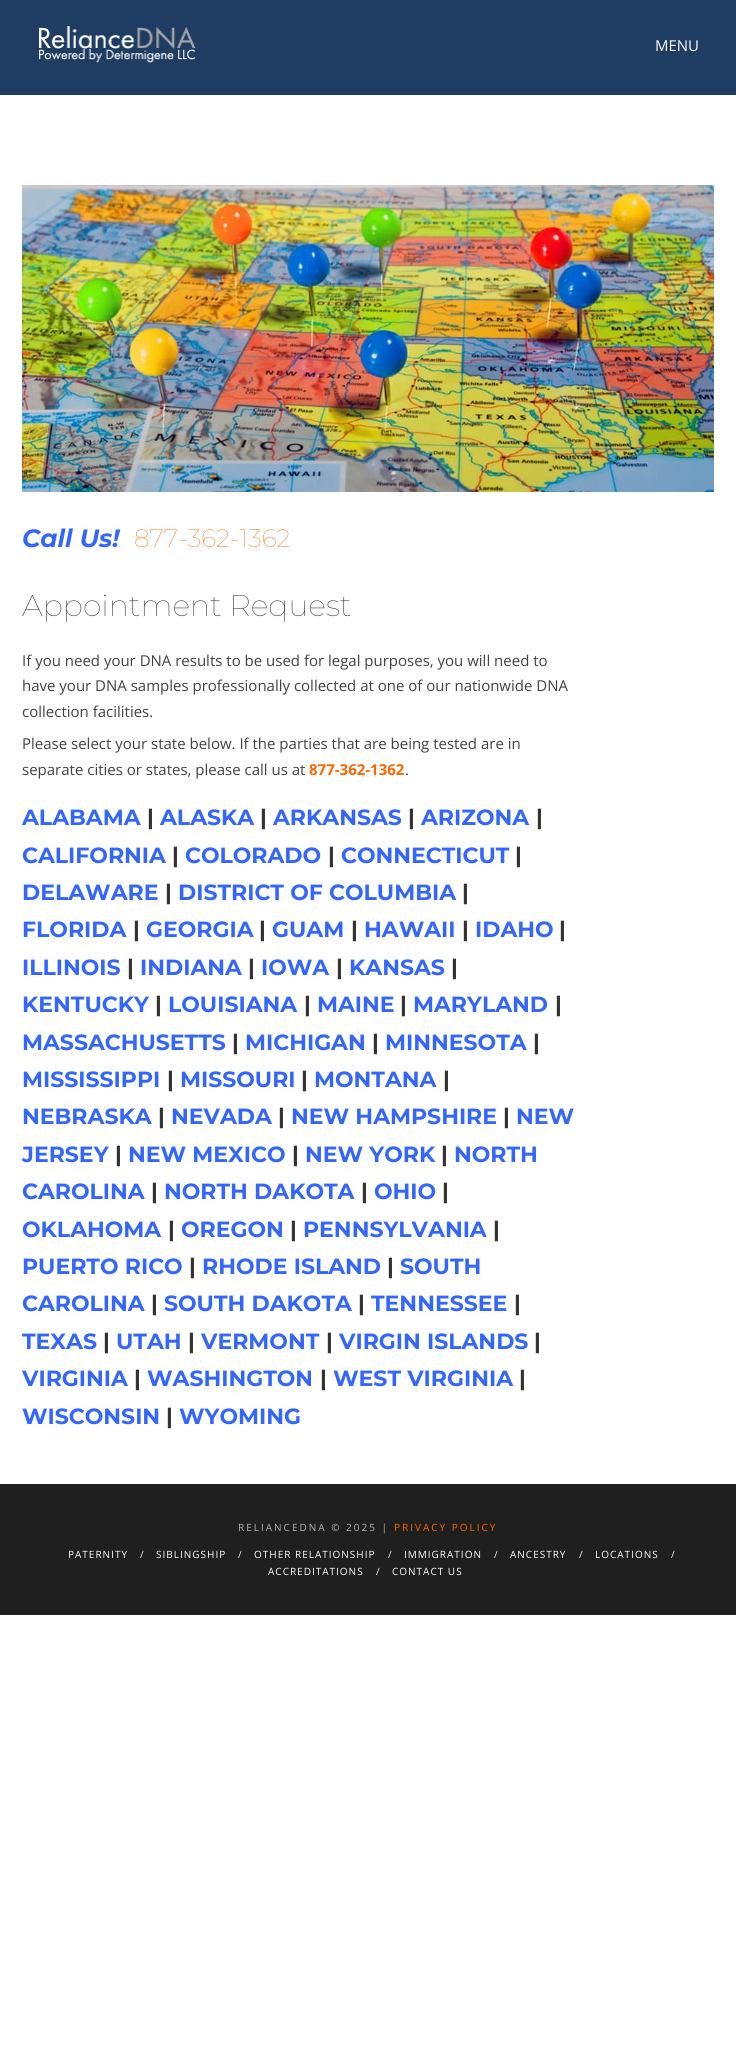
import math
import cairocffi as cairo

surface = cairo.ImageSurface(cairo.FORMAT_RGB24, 736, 2069)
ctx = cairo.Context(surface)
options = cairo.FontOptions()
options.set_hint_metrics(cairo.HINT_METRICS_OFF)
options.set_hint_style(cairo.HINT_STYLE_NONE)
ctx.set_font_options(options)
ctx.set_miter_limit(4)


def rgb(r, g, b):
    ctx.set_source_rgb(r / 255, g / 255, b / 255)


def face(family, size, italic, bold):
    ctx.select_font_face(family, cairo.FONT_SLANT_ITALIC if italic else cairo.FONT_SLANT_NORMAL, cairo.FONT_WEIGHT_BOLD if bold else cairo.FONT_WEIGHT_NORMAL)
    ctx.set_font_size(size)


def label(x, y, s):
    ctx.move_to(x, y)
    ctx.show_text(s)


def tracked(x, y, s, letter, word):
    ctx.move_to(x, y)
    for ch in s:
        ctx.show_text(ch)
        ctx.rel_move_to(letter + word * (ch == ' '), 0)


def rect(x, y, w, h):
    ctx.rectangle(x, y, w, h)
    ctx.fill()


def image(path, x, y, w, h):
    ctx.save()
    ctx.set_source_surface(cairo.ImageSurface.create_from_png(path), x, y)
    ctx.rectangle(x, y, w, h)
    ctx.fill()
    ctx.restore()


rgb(255, 255, 255)
ctx.paint()
rgb(31, 61, 98)
rect(0, 0, 736, 95)
image('image0.png', 39, 26, 157, 37)
face('Open Sans', 15, 0, 0)
rgb(255, 255, 255)
label(655, 51, 'MENU')
image('image1.png', 22, 185, 692, 307)
face('Montserrat', 25, 1, 1)
rgb(51, 102, 255)
label(22, 547, 'Call Us!')
face('Montserrat Thin', 25, 0, 0)
rgb(255, 102, 0)
label(134, 547, '877-362-1362')
face('Montserrat Thin', 30, 0, 0)
rgb(51, 51, 50)
label(22, 616, 'Appointment Request')
face('Open Sans', 15, 0, 0)
rgb(66, 66, 66)
label(22, 666, 'If you need your DNA results to be used for legal purposes, you will need to')
label(22, 691, 'have your DNA samples professionally collected at one of our nationwide DNA')
label(22, 717, 'collection facilities.')
label(22, 749, 'Please select your state below. If the parties that are being tested are in')
label(22, 775, 'separate cities or states, please call us at')
face('Open Sans', 15, 0, 1)
rgb(255, 102, 0)
label(309, 775, '877-362-1362')
face('Open Sans', 15, 0, 0)
rgb(66, 66, 66)
label(405, 775, '.')
face('Montserrat', 22, 0, 1)
rgb(51, 102, 255)
label(22, 825, 'ALABAMA')
rgb(51, 51, 50)
label(147, 825, '|')
rgb(51, 102, 255)
label(160, 825, 'ALASKA')
rgb(51, 51, 50)
label(260, 825, '|')
rgb(51, 102, 255)
label(273, 825, 'ARKANSAS')
rgb(51, 51, 50)
label(408, 825, '|')
rgb(51, 102, 255)
label(421, 825, 'ARIZONA')
rgb(51, 51, 50)
label(536, 825, '|')
rgb(51, 102, 255)
label(22, 863, 'CALIFORNIA')
rgb(51, 51, 50)
label(172, 863, '|')
rgb(51, 102, 255)
label(185, 863, 'COLORADO')
rgb(51, 51, 50)
label(328, 863, '|')
rgb(51, 102, 255)
label(341, 863, 'CONNECTICUT')
rgb(51, 51, 50)
label(515, 863, '|')
rgb(51, 102, 255)
label(22, 900, 'DELAWARE')
rgb(51, 51, 50)
label(165, 900, '|')
rgb(51, 102, 255)
label(178, 900, 'DISTRICT OF COLUMBIA')
rgb(51, 51, 50)
label(462, 900, '|')
rgb(51, 102, 255)
label(22, 937, 'FLORIDA')
rgb(51, 51, 50)
label(133, 937, '|')
rgb(51, 102, 255)
label(146, 937, 'GEORGIA')
rgb(51, 51, 50)
label(259, 937, '|')
rgb(51, 102, 255)
label(272, 937, 'GUAM')
rgb(51, 51, 50)
label(351, 937, '|')
rgb(51, 102, 255)
label(364, 937, 'HAWAII')
rgb(51, 51, 50)
label(462, 937, '|')
rgb(51, 102, 255)
label(475, 937, 'IDAHO')
rgb(51, 51, 50)
label(559, 937, '|')
rgb(51, 102, 255)
label(22, 975, 'ILLINOIS')
rgb(51, 51, 50)
label(127, 975, '|')
rgb(51, 102, 255)
label(140, 975, 'INDIANA')
rgb(51, 51, 50)
label(248, 975, '|')
rgb(51, 102, 255)
label(261, 975, 'IOWA')
rgb(51, 51, 50)
label(336, 975, '|')
rgb(51, 102, 255)
label(349, 975, 'KANSAS')
rgb(51, 51, 50)
label(451, 975, '|')
rgb(51, 102, 255)
label(22, 1012, 'KENTUCKY')
rgb(51, 51, 50)
label(155, 1012, '|')
rgb(51, 102, 255)
label(168, 1012, 'LOUISIANA')
rgb(51, 51, 50)
label(304, 1012, '|')
rgb(51, 102, 255)
label(317, 1012, 'MAINE')
rgb(51, 51, 50)
label(400, 1012, '|')
rgb(51, 102, 255)
label(413, 1012, 'MARYLAND')
rgb(51, 51, 50)
label(555, 1012, '|')
rgb(51, 102, 255)
label(22, 1050, 'MASSACHUSETTS')
rgb(51, 51, 50)
label(232, 1050, '|')
rgb(51, 102, 255)
label(245, 1050, 'MICHIGAN')
rgb(51, 51, 50)
label(372, 1050, '|')
rgb(51, 102, 255)
label(385, 1050, 'MINNESOTA')
rgb(51, 51, 50)
label(533, 1050, '|')
rgb(51, 102, 255)
label(22, 1087, 'MISSISSIPPI')
rgb(51, 51, 50)
label(167, 1087, '|')
rgb(51, 102, 255)
label(180, 1087, 'MISSOURI')
rgb(51, 51, 50)
label(301, 1087, '|')
rgb(51, 102, 255)
label(314, 1087, 'MONTANA')
rgb(51, 51, 50)
label(443, 1087, '|')
rgb(51, 102, 255)
label(22, 1124, 'NEBRASKA')
rgb(51, 51, 50)
label(158, 1124, '|')
rgb(51, 102, 255)
label(171, 1124, 'NEVADA')
rgb(51, 51, 50)
label(278, 1124, '|')
rgb(51, 102, 255)
label(291, 1124, 'NEW HAMPSHIRE')
rgb(51, 51, 50)
label(503, 1124, '|')
rgb(51, 102, 255)
label(516, 1124, 'NEW')
label(22, 1162, 'JERSEY')
rgb(51, 51, 50)
label(115, 1162, '|')
rgb(51, 102, 255)
label(128, 1162, 'NEW MEXICO')
rgb(51, 51, 50)
label(292, 1162, '|')
rgb(51, 102, 255)
label(305, 1162, 'NEW YORK')
rgb(51, 51, 50)
label(441, 1162, '|')
rgb(51, 102, 255)
label(454, 1162, 'NORTH')
label(22, 1199, 'CAROLINA')
rgb(51, 51, 50)
label(151, 1199, '|')
rgb(51, 102, 255)
label(164, 1199, 'NORTH DAKOTA')
rgb(51, 51, 50)
label(361, 1199, '|')
rgb(51, 102, 255)
label(374, 1199, 'OHIO')
rgb(51, 51, 50)
label(442, 1199, '|')
rgb(51, 102, 255)
label(22, 1237, 'OKLAHOMA')
rgb(51, 51, 50)
label(168, 1237, '|')
rgb(51, 102, 255)
label(181, 1237, 'OREGON')
rgb(51, 51, 50)
label(290, 1237, '|')
rgb(51, 102, 255)
label(303, 1237, 'PENNSYLVANIA')
rgb(51, 51, 50)
label(493, 1237, '|')
rgb(51, 102, 255)
label(22, 1274, 'PUERTO RICO')
rgb(51, 51, 50)
label(189, 1274, '|')
rgb(51, 102, 255)
label(202, 1274, 'RHODE ISLAND')
rgb(51, 51, 50)
label(387, 1274, '|')
rgb(51, 102, 255)
label(400, 1274, 'SOUTH')
label(22, 1311, 'CAROLINA')
rgb(51, 51, 50)
label(151, 1311, '|')
rgb(51, 102, 255)
label(164, 1311, 'SOUTH DAKOTA')
rgb(51, 51, 50)
label(358, 1311, '|')
rgb(51, 102, 255)
label(371, 1311, 'TENNESSEE')
rgb(51, 51, 50)
label(514, 1311, '|')
rgb(51, 102, 255)
label(22, 1349, 'TEXAS')
rgb(51, 51, 50)
label(103, 1349, '|')
rgb(51, 102, 255)
label(116, 1349, 'UTAH')
rgb(51, 51, 50)
label(188, 1349, '|')
rgb(51, 102, 255)
label(201, 1349, 'VERMONT')
rgb(51, 51, 50)
label(326, 1349, '|')
rgb(51, 102, 255)
label(339, 1349, 'VIRGIN ISLANDS')
rgb(51, 51, 50)
label(534, 1349, '|')
rgb(51, 102, 255)
label(22, 1386, 'VIRGINIA')
rgb(51, 51, 50)
label(134, 1386, '|')
rgb(51, 102, 255)
label(147, 1386, 'WASHINGTON')
rgb(51, 51, 50)
label(320, 1386, '|')
rgb(51, 102, 255)
label(333, 1386, 'WEST VIRGINIA')
rgb(51, 51, 50)
label(519, 1386, '|')
rgb(51, 102, 255)
label(22, 1424, 'WISCONSIN')
rgb(51, 51, 50)
label(166, 1424, '|')
rgb(51, 102, 255)
label(179, 1424, 'WYOMING')
rgb(31, 31, 31)
rect(0, 1484, 736, 131)
face('Open Sans', 10, 0, 0)
rgb(179, 179, 177)
tracked(238, 1531, 'RELIANCEDNA © 2025 |', 2, 0)
rgb(255, 102, 0)
tracked(394, 1531, 'PRIVACY POLICY', 2, 0)
rgb(255, 255, 255)
tracked(68, 1558, 'PATERNITY', 1, 0)
rgb(247, 247, 247)
tracked(140, 1558, '/', 1, 0)
rgb(255, 255, 255)
tracked(156, 1558, 'SIBLINGSHIP', 1, 0)
rgb(247, 247, 247)
tracked(238, 1558, '/', 1, 0)
rgb(255, 255, 255)
tracked(254, 1558, 'OTHER RELATIONSHIP', 1, 0)
rgb(247, 247, 247)
tracked(388, 1558, '/', 1, 0)
rgb(255, 255, 255)
tracked(404, 1558, 'IMMIGRATION', 1, 0)
rgb(247, 247, 247)
tracked(494, 1558, '/', 1, 0)
rgb(255, 255, 255)
tracked(510, 1558, 'ANCESTRY', 1, 0)
rgb(247, 247, 247)
tracked(579, 1558, '/', 1, 0)
rgb(255, 255, 255)
tracked(595, 1558, 'LOCATIONS', 1, 0)
rgb(247, 247, 247)
tracked(671, 1558, '/', 1, 0)
rgb(255, 255, 255)
tracked(268, 1575, 'ACCREDITATIONS', 1, 0)
rgb(247, 247, 247)
tracked(376, 1575, '/', 1, 0)
rgb(255, 255, 255)
tracked(392, 1575, 'CONTACT US', 1, 0)
surface.write_to_png('render.png')
